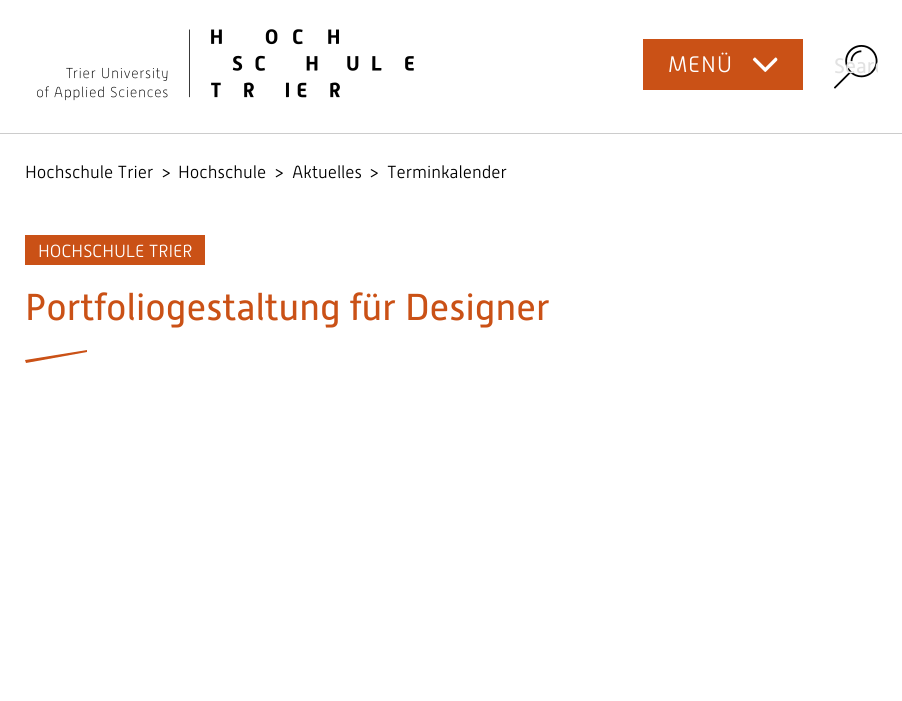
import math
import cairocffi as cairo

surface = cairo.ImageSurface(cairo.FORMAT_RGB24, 902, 701)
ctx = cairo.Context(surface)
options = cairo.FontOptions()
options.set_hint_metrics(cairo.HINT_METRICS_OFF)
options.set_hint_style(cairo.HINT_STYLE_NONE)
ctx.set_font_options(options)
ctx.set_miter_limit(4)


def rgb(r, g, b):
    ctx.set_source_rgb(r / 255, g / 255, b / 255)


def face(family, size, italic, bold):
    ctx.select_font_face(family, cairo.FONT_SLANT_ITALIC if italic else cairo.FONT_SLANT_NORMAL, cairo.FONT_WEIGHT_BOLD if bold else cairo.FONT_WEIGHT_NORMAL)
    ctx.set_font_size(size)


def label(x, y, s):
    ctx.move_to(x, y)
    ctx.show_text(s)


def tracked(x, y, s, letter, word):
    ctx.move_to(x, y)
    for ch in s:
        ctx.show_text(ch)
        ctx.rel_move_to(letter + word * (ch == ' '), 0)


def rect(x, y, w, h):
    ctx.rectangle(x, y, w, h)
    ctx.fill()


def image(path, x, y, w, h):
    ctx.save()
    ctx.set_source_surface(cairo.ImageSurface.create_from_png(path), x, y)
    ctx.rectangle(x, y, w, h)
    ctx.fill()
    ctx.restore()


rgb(255, 255, 255)
ctx.paint()
rgb(204, 204, 204)
rect(0, 133, 902, 1)
image('image0.png', 37, 29, 377, 72)
rgb(202, 81, 22)
rect(643, 39, 160, 51)
face('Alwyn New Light', 22.5, 0, 0)
rgb(255, 255, 255)
tracked(668, 72, 'MENÜ', 1, 0)
image('image1.png', 752, 57, 26, 15)
image('image2.png', 834, 45, 44, 44)
ctx.save()
ctx.rectangle(834, 45, 44, 44)
ctx.clip()
face('Alwyn New', 21, 0, 0)
rgb(226, 226, 226)
label(834, 73, 'Searc')
ctx.restore()
face('Alwyn New Light', 17.5, 0, 0)
rgb(0, 0, 0)
label(25, 178, 'Hochschule Trier')
label(161, 178, '>')
label(178, 178, 'Hochschule')
label(274, 178, '>')
label(292, 178, 'Aktuelles')
label(369, 178, '>')
label(387, 178, 'Terminkalender')
rgb(202, 81, 22)
rect(25, 235, 180, 30)
rgb(255, 255, 255)
label(38, 257, 'HOCHSCHULE TRIER')
face('Alwyn New', 37.5, 0, 0)
rgb(202, 81, 22)
label(25, 320, 'Portfoliogestaltung für Designer')
ctx.new_path()
ctx.move_to(25, 360)
ctx.line_to(87, 350)
ctx.line_to(87, 352)
ctx.line_to(26, 363)
ctx.close_path()
ctx.fill()
surface.write_to_png('render.png')
